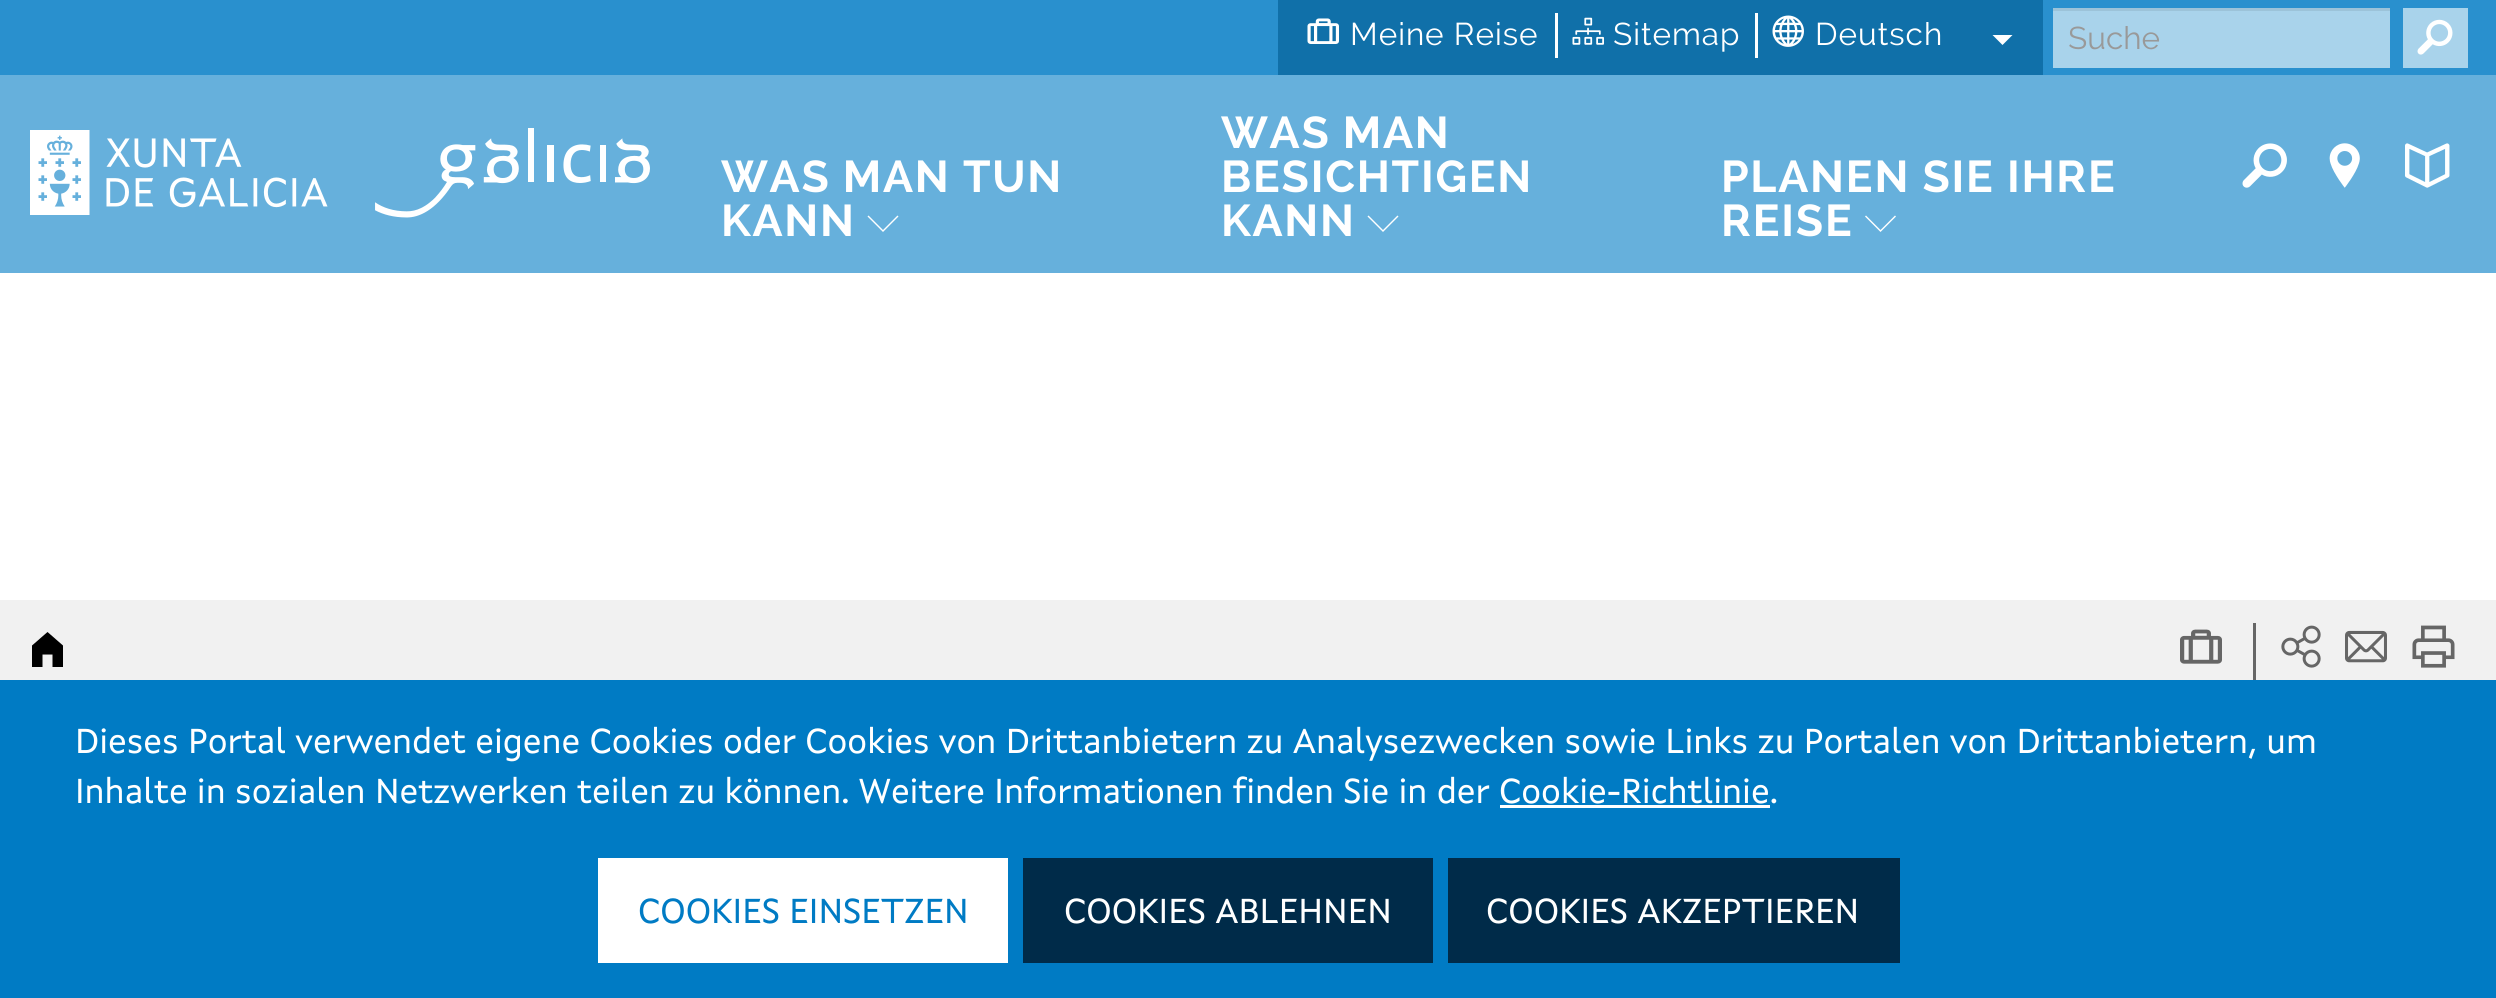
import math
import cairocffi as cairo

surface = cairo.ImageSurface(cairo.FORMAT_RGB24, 2496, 998)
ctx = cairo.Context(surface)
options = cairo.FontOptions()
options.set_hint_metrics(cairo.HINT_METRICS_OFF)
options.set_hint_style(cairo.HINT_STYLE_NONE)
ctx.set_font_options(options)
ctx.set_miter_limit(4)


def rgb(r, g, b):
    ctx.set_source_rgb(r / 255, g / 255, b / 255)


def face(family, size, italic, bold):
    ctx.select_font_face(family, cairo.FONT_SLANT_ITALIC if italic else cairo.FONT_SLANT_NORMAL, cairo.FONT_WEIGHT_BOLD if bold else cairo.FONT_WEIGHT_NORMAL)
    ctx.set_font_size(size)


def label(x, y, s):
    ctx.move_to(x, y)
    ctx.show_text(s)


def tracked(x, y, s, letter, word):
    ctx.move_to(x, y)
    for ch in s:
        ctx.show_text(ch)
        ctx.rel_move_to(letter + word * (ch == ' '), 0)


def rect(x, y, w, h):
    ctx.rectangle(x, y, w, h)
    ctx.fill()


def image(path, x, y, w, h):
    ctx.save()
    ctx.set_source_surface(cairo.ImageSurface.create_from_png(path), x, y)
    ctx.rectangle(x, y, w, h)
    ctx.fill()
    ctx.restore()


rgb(255, 255, 255)
ctx.paint()
rgb(102, 176, 220)
rect(0, 75, 2496, 198)
rgb(41, 144, 206)
rect(0, 0, 2496, 75)
rgb(16, 112, 169)
rect(1278, 0, 765, 75)
rgb(255, 255, 255)
rect(1555, 13, 3, 45)
image('image0.png', 1307, 18, 32, 26)
face('Raleway', 31.5, 0, 0)
tracked(1350, 45, 'Meine Reise', 1, 0)
rect(1755, 13, 3, 45)
image('image1.png', 1572, 17, 32, 28)
tracked(1613, 45, 'Sitemap', 1, 0)
image('image2.png', 1772, 15, 32, 32)
tracked(1815, 45, 'Deutsch', 1, 0)
ctx.new_path()
ctx.move_to(1992.5, 35)
ctx.line_to(2012.5, 35)
ctx.line_to(2002.5, 45)
ctx.close_path()
ctx.fill()
rgb(169, 211, 235)
rect(2053, 11, 337, 57)
rgb(156, 195, 217)
rect(2053, 8, 337, 3)
rgb(153, 153, 153)
label(2068, 49, 'Suche')
rgb(169, 211, 235)
rect(2403, 8, 65, 60)
image('image3.png', 2417, 19, 36, 36)
image('image4.png', 30, 130, 298, 85)
image('image5.png', 375, 128, 275, 90)
face('Raleway', 44.5, 0, 1)
rgb(255, 255, 255)
tracked(721, 192, 'WAS MAN TUN', 1.75, 0)
tracked(721, 236, 'KANN', 1.75, 0)
ctx.new_path()
ctx.move_to(883, 232)
ctx.line_to(867.5, 216.5)
ctx.line_to(868.5, 215.5)
ctx.line_to(883, 230)
ctx.line_to(897.5, 215.5)
ctx.line_to(898.5, 216.5)
ctx.close_path()
ctx.fill()
tracked(1221, 148, 'WAS MAN', 1.75, 0)
tracked(1221, 192, 'BESICHTIGEN', 1.75, 0)
tracked(1221, 236, 'KANN', 1.75, 0)
ctx.new_path()
ctx.move_to(1383, 232)
ctx.line_to(1367.5, 216.5)
ctx.line_to(1368.5, 215.5)
ctx.line_to(1383, 230)
ctx.line_to(1397.5, 215.5)
ctx.line_to(1398.5, 216.5)
ctx.close_path()
ctx.fill()
tracked(1721, 192, 'PLANEN SIE IHRE', 1.75, 0)
tracked(1721, 236, 'REISE', 1.75, 0)
ctx.new_path()
ctx.move_to(1880.5, 232)
ctx.line_to(1865, 216.5)
ctx.line_to(1866, 215.5)
ctx.line_to(1880.5, 230)
ctx.line_to(1895, 215.5)
ctx.line_to(1896, 216.5)
ctx.close_path()
ctx.fill()
image('image6.png', 2242, 143, 45, 45)
image('image7.png', 2329, 143, 31, 45)
image('image8.png', 2405, 143, 45, 45)
rgb(241, 241, 241)
rect(0, 600, 2496, 80)
rgb(0, 0, 0)
ctx.new_path()
ctx.move_to(47.5, 632)
ctx.line_to(32, 645.5)
ctx.line_to(32, 667)
ctx.line_to(42.5, 667)
ctx.line_to(42.5, 654.5)
ctx.line_to(52.5, 654.5)
ctx.line_to(52.5, 667)
ctx.line_to(63, 667)
ctx.line_to(63, 645.5)
ctx.close_path()
ctx.fill()
rgb(102, 102, 102)
rect(2253, 623, 3, 60)
image('image9.png', 2180, 629, 42, 35)
image('image10.png', 2281, 625, 40, 43)
image('image11.png', 2345, 630, 42, 33)
image('image12.png', 2412, 625, 43, 43)
rgb(0, 123, 196)
rect(0, 680, 2496, 318)
face('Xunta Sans', 35, 0, 0)
rgb(255, 255, 255)
label(75, 753, 'Dieses Portal verwendet eigene Cookies oder Cookies von Drittanbietern zu Analysezwecken sowie Links zu Portalen von Drittanbietern, um')
label(75, 803, 'Inhalte in sozialen Netzwerken teilen zu können. Weitere Informationen finden Sie in der Cookie-Richtlinie.')
rect(1500, 805, 270, 3)
rect(598, 858, 410, 105)
rgb(0, 123, 196)
label(638, 923, 'COOKIES EINSETZEN')
rgb(0, 43, 73)
rect(1023, 858, 410, 105)
rgb(255, 255, 255)
label(1064, 923, 'COOKIES ABLEHNEN')
rgb(0, 43, 73)
rect(1448, 858, 452, 105)
rgb(255, 255, 255)
label(1486, 923, 'COOKIES AKZEPTIEREN')
surface.write_to_png('render.png')
